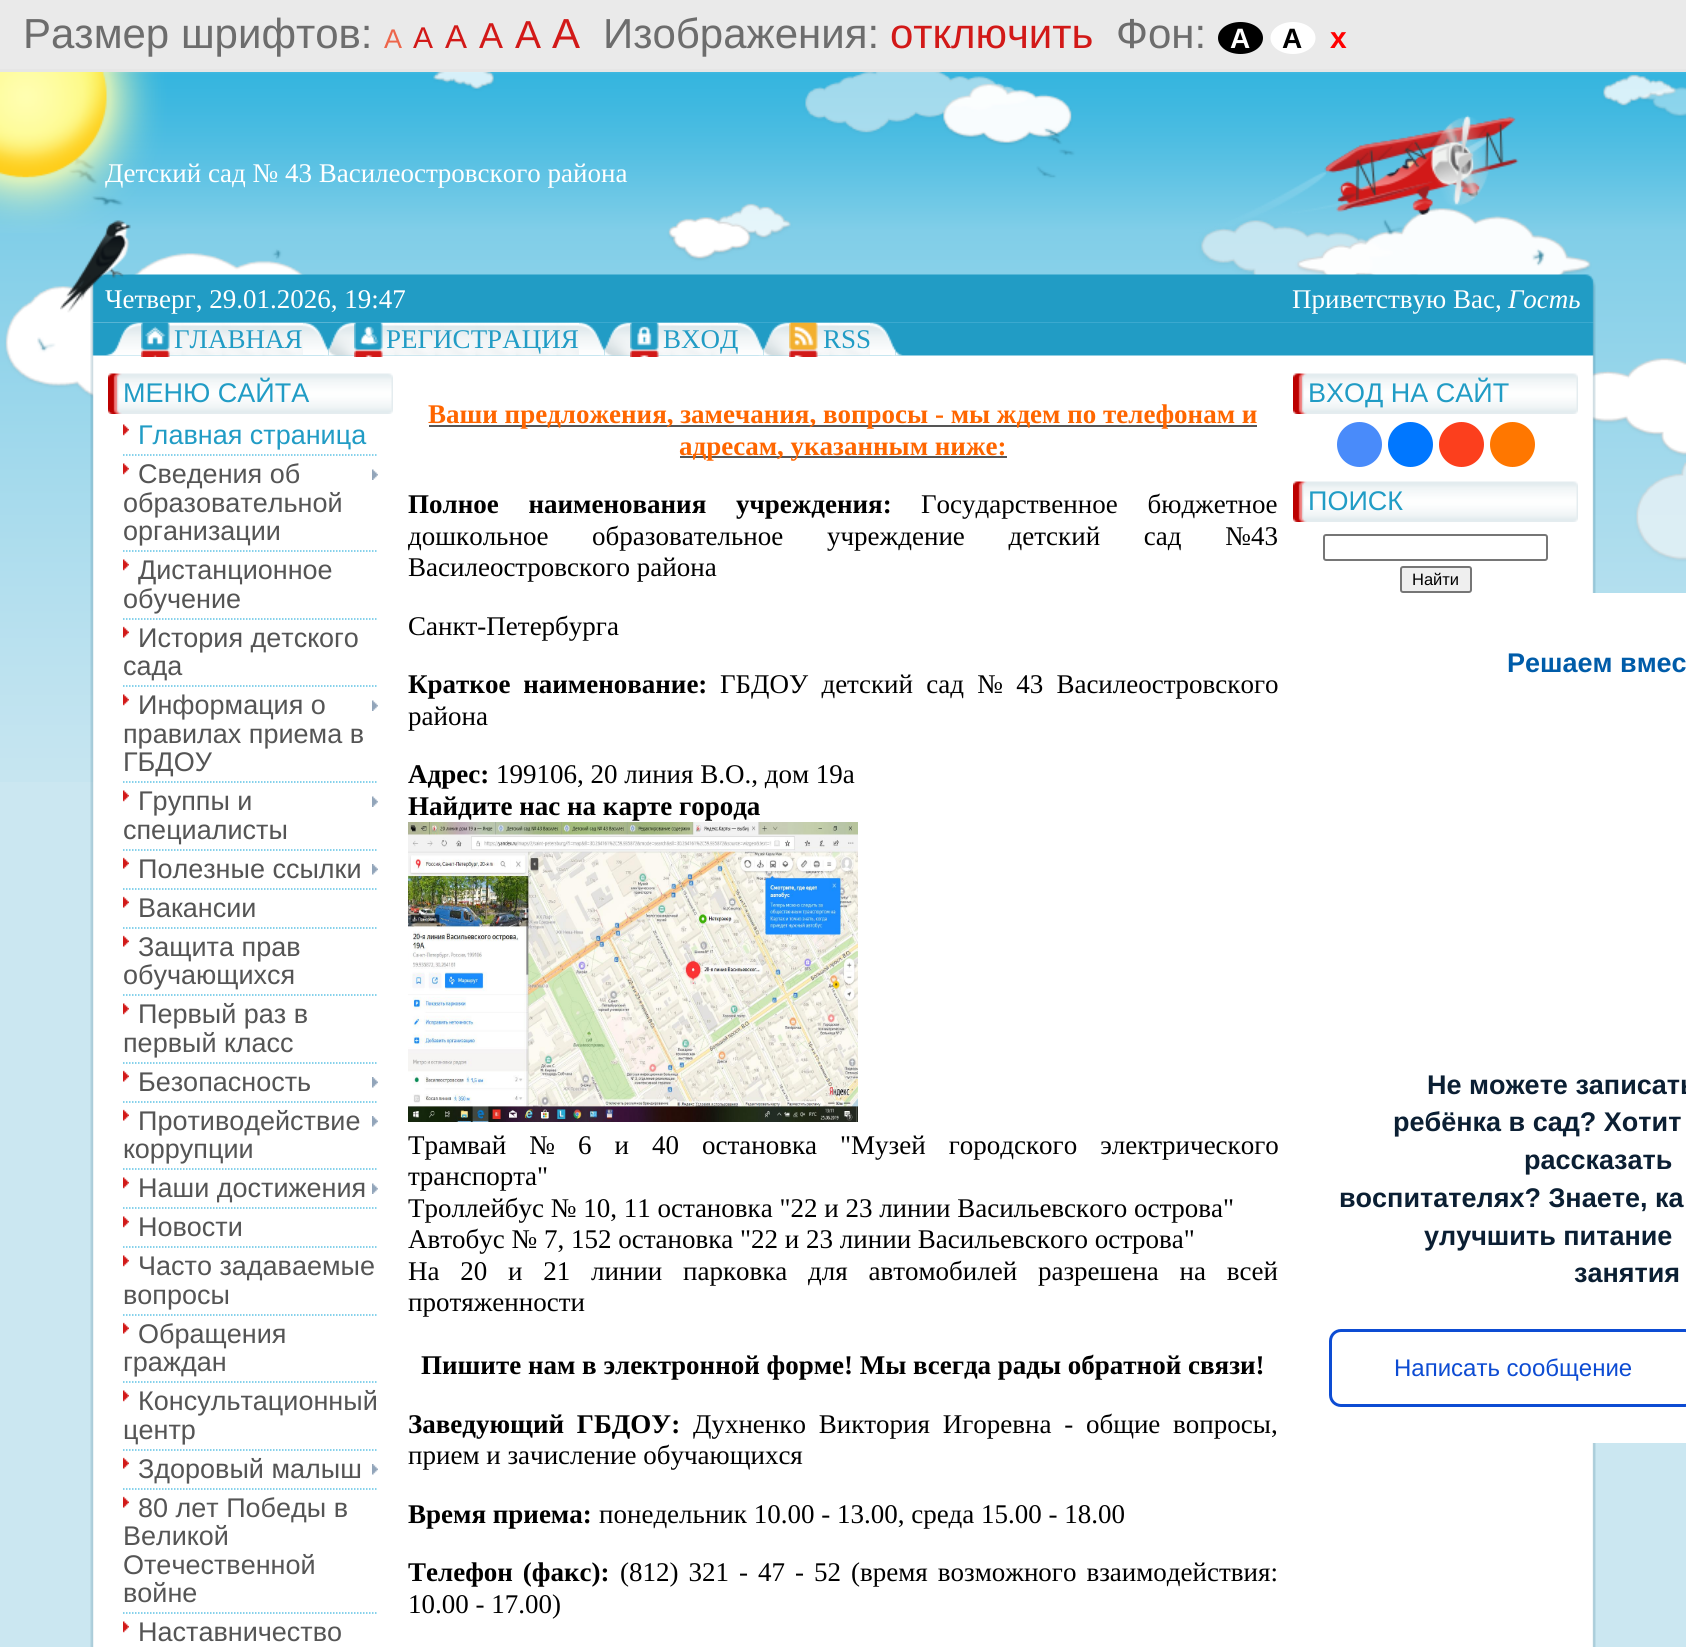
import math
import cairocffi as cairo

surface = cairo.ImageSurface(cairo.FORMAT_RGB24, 1686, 1647)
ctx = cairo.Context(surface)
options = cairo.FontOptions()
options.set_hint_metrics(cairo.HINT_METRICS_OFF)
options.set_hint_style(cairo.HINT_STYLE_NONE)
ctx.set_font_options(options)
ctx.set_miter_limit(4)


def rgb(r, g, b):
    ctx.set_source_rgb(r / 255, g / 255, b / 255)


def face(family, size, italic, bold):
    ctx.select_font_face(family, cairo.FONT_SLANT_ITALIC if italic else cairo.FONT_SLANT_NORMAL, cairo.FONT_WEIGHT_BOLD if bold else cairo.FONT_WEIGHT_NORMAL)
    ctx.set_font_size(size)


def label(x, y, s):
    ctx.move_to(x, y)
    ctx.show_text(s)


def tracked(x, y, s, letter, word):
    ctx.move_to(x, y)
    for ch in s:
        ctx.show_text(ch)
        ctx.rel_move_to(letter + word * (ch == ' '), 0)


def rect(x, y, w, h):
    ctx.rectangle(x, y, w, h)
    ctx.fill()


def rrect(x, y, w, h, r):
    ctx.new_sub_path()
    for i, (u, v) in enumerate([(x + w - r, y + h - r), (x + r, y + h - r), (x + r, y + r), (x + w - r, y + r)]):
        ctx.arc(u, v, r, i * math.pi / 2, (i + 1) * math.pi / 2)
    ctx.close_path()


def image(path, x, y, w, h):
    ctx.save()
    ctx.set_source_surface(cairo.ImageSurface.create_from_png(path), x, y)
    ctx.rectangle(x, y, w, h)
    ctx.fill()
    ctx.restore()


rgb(203, 231, 241)
ctx.paint()
rgb(234, 234, 234)
rect(0, 0, 1686, 69)
rgb(230, 230, 230)
rect(0, 69, 1686, 3)
face('Liberation Sans', 42, 0, 0)
rgb(109, 109, 109)
label(23, 48, 'Размер шрифтов:')
face('Liberation Sans', 27, 0, 0)
rgb(237, 102, 75)
label(384, 48, 'A')
face('Liberation Sans', 30, 0, 0)
rgb(210, 25, 24)
label(413, 48, 'A')
face('Liberation Sans', 33, 0, 0)
label(445, 48, 'A')
face('Liberation Sans', 36, 0, 0)
label(479, 48, 'A')
face('Liberation Sans', 39, 0, 0)
label(515, 48, 'A')
face('Liberation Sans', 42, 0, 0)
label(552, 48, 'A')
rgb(109, 109, 109)
label(603, 48, 'Изображения:')
rgb(210, 25, 24)
label(890, 48, 'отключить')
rgb(109, 109, 109)
label(1116, 48, 'Фон:')
rgb(0, 0, 0)
ctx.new_path()
ctx.move_to(1240.5, 22)
ctx.curve_to(1253, 22, 1263, 29, 1263, 38)
ctx.curve_to(1263, 47, 1253, 54, 1240.5, 54)
ctx.curve_to(1228, 54, 1218, 47, 1218, 38)
ctx.curve_to(1218, 29, 1228, 22, 1240.5, 22)
ctx.close_path()
ctx.fill()
face('Liberation Sans', 28, 0, 1)
rgb(255, 255, 255)
label(1230, 48, 'A')
ctx.new_path()
ctx.move_to(1293, 22)
ctx.curve_to(1305.5, 22, 1315.5, 29, 1315.5, 38)
ctx.curve_to(1315.5, 47, 1305.5, 54, 1293, 54)
ctx.curve_to(1280.5, 54, 1270.5, 47, 1270.5, 38)
ctx.curve_to(1270.5, 29, 1280.5, 22, 1293, 22)
ctx.close_path()
ctx.fill()
rgb(0, 0, 0)
label(1282, 48, 'A')
face('Liberation Sans', 30, 0, 1)
rgb(255, 0, 0)
label(1330, 48, 'x')
image('image0.png', 0, 72, 1686, 710)
image('image1.png', 0, 72, 1519, 161)
face('Liberation Serif', 27, 0, 0)
rgb(255, 255, 255)
label(105, 182, 'Детский сад № 43 Василеостровского района')
image('image4.png', 90, 322, 1506, 35)
image('image5.png', 106, 322, 35, 34)
image('image6.png', 141, 322, 162, 34)
image('image7.png', 141, 322, 29, 35)
image('image8.png', 303, 322, 26, 34)
image('image9.png', 328, 322, 26, 34)
image('image10.png', 354, 322, 225, 34)
image('image11.png', 354, 322, 29, 35)
image('image12.png', 579, 322, 26, 34)
image('image13.png', 604, 322, 26, 34)
image('image14.png', 630, 322, 108, 34)
image('image15.png', 630, 322, 29, 35)
image('image12.png', 738, 322, 26, 34)
image('image16.png', 763, 322, 26, 34)
image('image17.png', 789, 322, 81, 34)
image('image18.png', 789, 322, 29, 35)
image('image19.png', 870, 322, 26, 34)
image('image2.png', 90, 274, 1506, 49)
label(105, 308, 'Четверг, 29.01.2026, 19:47')
image('image3.png', 60, 220, 71, 93)
label(1292, 308, 'Приветствую Вас,')
face('Liberation Serif', 27, 1, 0)
label(1508, 308, 'Гость')
face('Liberation Serif', 27, 0, 0)
rgb(33, 156, 197)
label(174, 348, 'ГЛАВНАЯ')
label(386, 348, 'РЕГИСТРАЦИЯ')
label(663, 348, 'ВХОД')
label(823, 348, 'RSS')
image('image20.png', 895, 350, 8, 6)
image('image21.png', 90, 357, 1506, 1290)
image('image22.png', 108, 373, 285, 41)
face('Liberation Sans', 27, 0, 0)
label(123, 402, 'МЕНЮ САЙТА')
ctx.new_path()
ctx.move_to(123, 455)
ctx.line_to(378, 455)
rgb(94, 194, 228)
ctx.set_line_width(1.5)
ctx.set_dash([1.5, 1.5])
ctx.stroke()
image('image23.png', 123, 424, 6, 12)
rgb(33, 156, 197)
label(138, 444, 'Главная страница')
ctx.new_path()
ctx.move_to(123, 551)
ctx.line_to(378, 551)
rgb(94, 194, 228)
ctx.stroke()
image('image23.png', 123, 463, 6, 12)
rgb(85, 85, 85)
label(138, 483, 'Сведения об')
image('image24.png', 372, 469, 6, 11)
label(123, 512, 'образовательной')
label(123, 540, 'организации')
ctx.new_path()
ctx.move_to(123, 619)
ctx.line_to(378, 619)
rgb(94, 194, 228)
ctx.stroke()
image('image23.png', 123, 559, 6, 12)
rgb(85, 85, 85)
label(138, 579, 'Дистанционное')
label(123, 608, 'обучение')
ctx.new_path()
ctx.move_to(123, 686)
ctx.line_to(378, 686)
rgb(94, 194, 228)
ctx.stroke()
image('image25.png', 123, 626, 6, 12)
rgb(85, 85, 85)
label(138, 647, 'История детского')
label(123, 675, 'сада')
ctx.new_path()
ctx.move_to(123, 782)
ctx.line_to(378, 782)
rgb(94, 194, 228)
ctx.stroke()
image('image23.png', 123, 694, 6, 12)
rgb(85, 85, 85)
label(138, 714, 'Информация о')
image('image24.png', 372, 700, 6, 11)
label(123, 743, 'правилах приема в')
label(123, 771, 'ГБДОУ')
ctx.new_path()
ctx.move_to(123, 850)
ctx.line_to(378, 850)
rgb(94, 194, 228)
ctx.stroke()
image('image23.png', 123, 790, 6, 12)
rgb(85, 85, 85)
label(138, 810, 'Группы и')
image('image24.png', 372, 796, 6, 11)
label(123, 839, 'специалисты')
ctx.new_path()
ctx.move_to(123, 889)
ctx.line_to(378, 889)
rgb(94, 194, 228)
ctx.stroke()
image('image25.png', 123, 857, 6, 12)
rgb(85, 85, 85)
label(138, 878, 'Полезные ссылки')
image('image26.png', 372, 864, 6, 11)
ctx.new_path()
ctx.move_to(123, 928)
ctx.line_to(378, 928)
rgb(94, 194, 228)
ctx.stroke()
image('image25.png', 123, 896, 6, 12)
rgb(85, 85, 85)
label(138, 917, 'Вакансии')
ctx.new_path()
ctx.move_to(123, 995)
ctx.line_to(378, 995)
rgb(94, 194, 228)
ctx.stroke()
image('image25.png', 123, 935, 6, 12)
rgb(85, 85, 85)
label(138, 956, 'Защита прав')
label(123, 984, 'обучающихся')
ctx.new_path()
ctx.move_to(123, 1063)
ctx.line_to(378, 1063)
rgb(94, 194, 228)
ctx.stroke()
image('image23.png', 123, 1003, 6, 12)
rgb(85, 85, 85)
label(138, 1023, 'Первый раз в')
label(123, 1052, 'первый класс')
ctx.new_path()
ctx.move_to(123, 1102)
ctx.line_to(378, 1102)
rgb(94, 194, 228)
ctx.stroke()
image('image25.png', 123, 1070, 6, 12)
rgb(85, 85, 85)
label(138, 1091, 'Безопасность')
image('image26.png', 372, 1077, 6, 11)
ctx.new_path()
ctx.move_to(123, 1169)
ctx.line_to(378, 1169)
rgb(94, 194, 228)
ctx.stroke()
image('image25.png', 123, 1109, 6, 12)
rgb(85, 85, 85)
label(138, 1130, 'Противодействие')
image('image26.png', 372, 1116, 6, 11)
label(123, 1158, 'коррупции')
ctx.new_path()
ctx.move_to(123, 1208)
ctx.line_to(378, 1208)
rgb(94, 194, 228)
ctx.stroke()
image('image23.png', 123, 1177, 6, 12)
rgb(85, 85, 85)
label(138, 1197, 'Наши достижения')
image('image24.png', 372, 1183, 6, 11)
ctx.new_path()
ctx.move_to(123, 1247)
ctx.line_to(378, 1247)
rgb(94, 194, 228)
ctx.stroke()
image('image23.png', 123, 1216, 6, 12)
rgb(85, 85, 85)
label(138, 1236, 'Новости')
ctx.new_path()
ctx.move_to(123, 1315)
ctx.line_to(378, 1315)
rgb(94, 194, 228)
ctx.stroke()
image('image23.png', 123, 1255, 6, 12)
rgb(85, 85, 85)
label(138, 1275, 'Часто задаваемые')
label(123, 1304, 'вопросы')
ctx.new_path()
ctx.move_to(123, 1382)
ctx.line_to(378, 1382)
rgb(94, 194, 228)
ctx.stroke()
image('image25.png', 123, 1322, 6, 12)
rgb(85, 85, 85)
label(138, 1343, 'Обращения')
label(123, 1371, 'граждан')
ctx.new_path()
ctx.move_to(123, 1450)
ctx.line_to(378, 1450)
rgb(94, 194, 228)
ctx.stroke()
image('image23.png', 123, 1390, 6, 12)
rgb(85, 85, 85)
label(138, 1410, 'Консультационный')
label(123, 1439, 'центр')
ctx.new_path()
ctx.move_to(123, 1489)
ctx.line_to(378, 1489)
rgb(94, 194, 228)
ctx.stroke()
image('image25.png', 123, 1457, 6, 12)
rgb(85, 85, 85)
label(138, 1478, 'Здоровый малыш')
image('image26.png', 372, 1464, 6, 11)
ctx.new_path()
ctx.move_to(123, 1613)
ctx.line_to(378, 1613)
rgb(94, 194, 228)
ctx.stroke()
image('image25.png', 123, 1496, 6, 12)
rgb(85, 85, 85)
label(138, 1517, '80 лет Победы в')
label(123, 1545, 'Великой')
label(123, 1574, 'Отечественной')
label(123, 1602, 'войне')
image('image23.png', 123, 1621, 6, 12)
label(138, 1641, 'Наставничество')
rect(429, 425, 828, 2)
face('Liberation Serif', 27, 0, 1)
rgb(255, 102, 0)
label(428, 423, 'Ваши предложения, замечания, вопросы - мы ждем по телефонам и')
rgb(85, 85, 85)
rect(680, 456, 327, 2)
rgb(255, 102, 0)
label(679, 455, 'адресам, указанным ниже:')
rgb(0, 0, 0)
tracked(408, 513, 'Полное наименования учреждения:', 0, 23)
face('Liberation Serif', 27, 0, 0)
tracked(921, 513, 'Государственное бюджетное', 0, 23)
tracked(408, 545, 'дошкольное образовательное учреждение детский сад №43', 0, 37)
label(408, 576, 'Василеостровского района')
label(408, 635, 'Санкт-Петербурга')
face('Liberation Serif', 27, 0, 1)
tracked(408, 693, 'Краткое наименование:', 0, 6)
face('Liberation Serif', 27, 0, 0)
tracked(720, 693, 'ГБДОУ детский сад № 43 Василеостровского', 0, 6.5)
label(408, 725, 'района')
face('Liberation Serif', 27, 0, 1)
label(408, 783, 'Адрес:')
face('Liberation Serif', 27, 0, 0)
label(496, 783, '199106, 20 линия В.О., дом 19а')
face('Liberation Serif', 27, 0, 1)
label(408, 815, 'Найдите нас на карте города')
image('image27.png', 408, 822, 450, 300)
face('Liberation Serif', 27, 0, 0)
tracked(408, 1154, 'Трамвай № 6 и 40 остановка "Музей городского электрического', 0, 16.25)
label(408, 1185, 'транспорта"')
label(408, 1217, 'Троллейбус № 10, 11 остановка "22 и 23 линии Васильевского острова"')
label(408, 1248, 'Автобус № 7, 152 остановка "22 и 23 линии Васильевского острова"')
tracked(408, 1280, 'На 20 и 21 линии парковка для автомобилей разрешена на всей', 0, 14)
label(408, 1311, 'протяженности')
face('Liberation Serif', 27, 0, 1)
label(421, 1374, 'Пишите нам в электронной форме! Мы всегда рады обратной связи!')
tracked(408, 1433, 'Заведующий ГБДОУ:', 0, 6)
face('Liberation Serif', 27, 0, 0)
tracked(693, 1433, 'Духненко Виктория Игоревна - общие вопросы,', 0, 6)
label(408, 1464, 'прием и зачисление обучающихся')
face('Liberation Serif', 27, 0, 1)
label(408, 1523, 'Время приема:')
face('Liberation Serif', 27, 0, 0)
label(599, 1523, 'понедельник 10.00 - 13.00, среда 15.00 - 18.00')
face('Liberation Serif', 27, 0, 1)
tracked(408, 1581, 'Телефон (факс):', 0, 3.25)
face('Liberation Serif', 27, 0, 0)
tracked(620, 1581, '(812) 321 - 47 - 52', 0, 3.25)
tracked(851, 1581, '(время возможного взаимодействия:', 0, 3.25)
label(408, 1613, '10.00 - 17.00)')
image('image28.png', 1293, 373, 285, 41)
face('Liberation Sans', 27, 0, 0)
rgb(33, 156, 197)
label(1308, 402, 'ВХОД НА САЙТ')
rgb(73, 139, 250)
ctx.new_path()
ctx.arc(1359.5, 444.5, 22.5, 0, 2 * math.pi)
ctx.fill()
rgb(0, 119, 255)
ctx.arc(1410.5, 444.5, 22.5, 0, 2 * math.pi)
ctx.fill()
rgb(252, 63, 29)
ctx.arc(1461.5, 444.5, 22.5, 0, 2 * math.pi)
ctx.fill()
rgb(255, 119, 0)
ctx.arc(1512.5, 444.5, 22.5, 0, 2 * math.pi)
ctx.fill()
image('image28.png', 1293, 481, 285, 41)
rgb(33, 156, 197)
label(1308, 510, 'ПОИСК')
rrect(1324, 535, 223, 25, 2)
rgb(118, 118, 118)
ctx.set_line_width(2)
ctx.set_dash([])
ctx.stroke()
rgb(239, 239, 239)
rrect(1401, 567, 70, 25, 2)
ctx.fill_preserve()
rgb(118, 118, 118)
ctx.stroke()
face('Liberation Sans', 16.5, 0, 0)
rgb(0, 0, 0)
label(1412, 585, 'Найти')
rgb(255, 255, 255)
rect(1592, 593, 94, 850)
face('Liberation Sans', 27, 0, 1)
rgb(0, 92, 169)
label(1507, 672, 'Решаем вмес')
rgb(11, 31, 51)
label(1427, 1094, 'Не можете записать')
label(1393, 1131, 'ребёнка в сад? Хотит')
label(1524, 1169, 'рассказать')
label(1339, 1207, 'воспитателях? Знаете, ка')
label(1424, 1245, 'улучшить питание')
label(1574, 1282, 'занятия')
rrect(1330.5, 1330.5, 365, 75, 10.5)
rgb(13, 76, 211)
ctx.set_line_width(3)
ctx.stroke()
face('Liberation Sans', 24, 0, 0)
label(1394, 1376, 'Написать сообщение')
surface.write_to_png('render.png')
